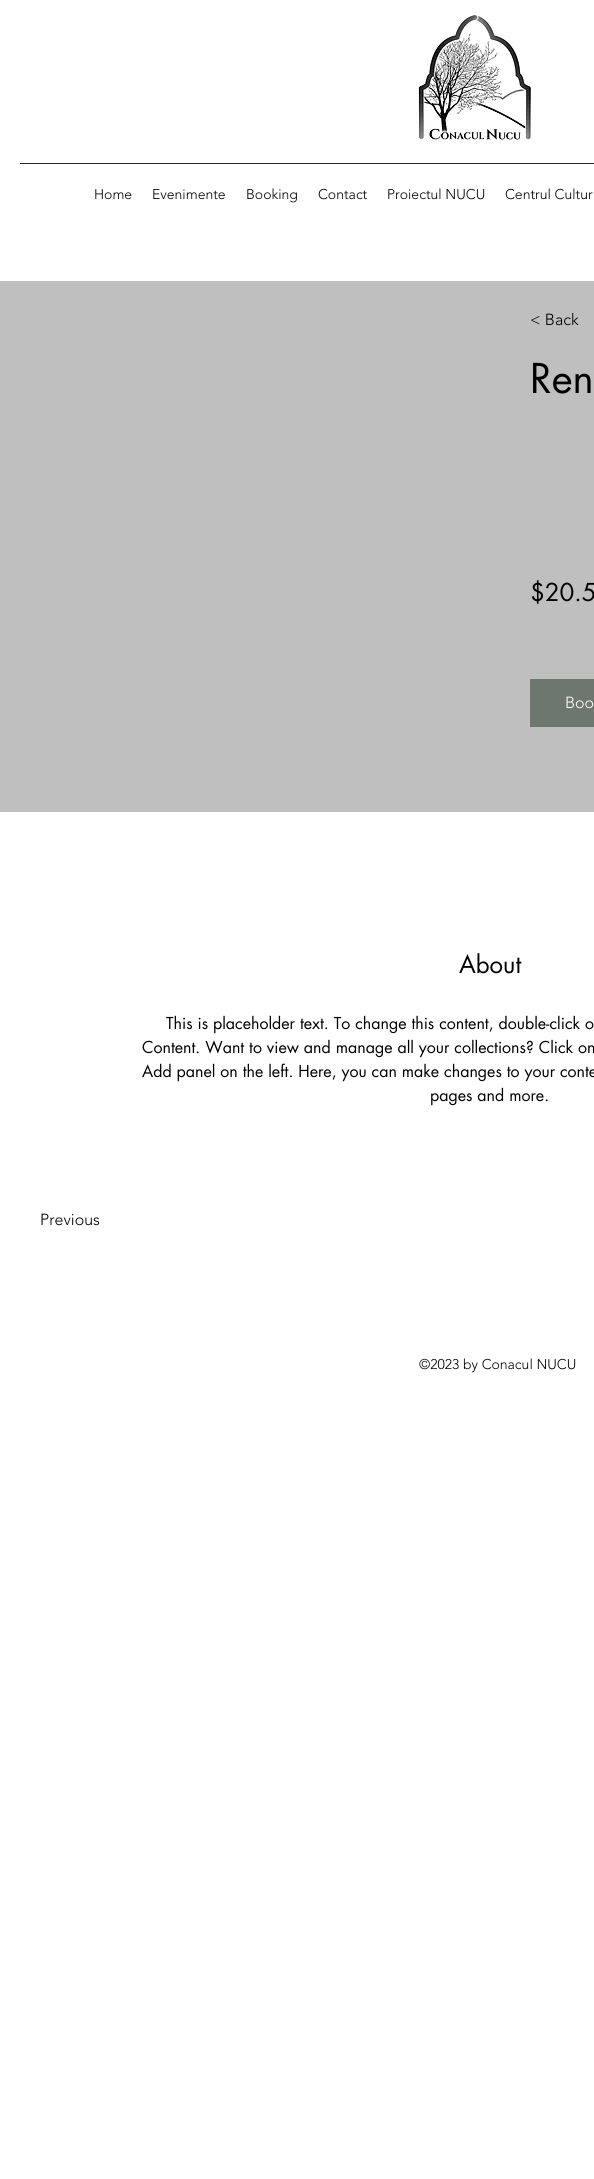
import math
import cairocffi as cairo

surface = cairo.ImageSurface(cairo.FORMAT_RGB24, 594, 2179)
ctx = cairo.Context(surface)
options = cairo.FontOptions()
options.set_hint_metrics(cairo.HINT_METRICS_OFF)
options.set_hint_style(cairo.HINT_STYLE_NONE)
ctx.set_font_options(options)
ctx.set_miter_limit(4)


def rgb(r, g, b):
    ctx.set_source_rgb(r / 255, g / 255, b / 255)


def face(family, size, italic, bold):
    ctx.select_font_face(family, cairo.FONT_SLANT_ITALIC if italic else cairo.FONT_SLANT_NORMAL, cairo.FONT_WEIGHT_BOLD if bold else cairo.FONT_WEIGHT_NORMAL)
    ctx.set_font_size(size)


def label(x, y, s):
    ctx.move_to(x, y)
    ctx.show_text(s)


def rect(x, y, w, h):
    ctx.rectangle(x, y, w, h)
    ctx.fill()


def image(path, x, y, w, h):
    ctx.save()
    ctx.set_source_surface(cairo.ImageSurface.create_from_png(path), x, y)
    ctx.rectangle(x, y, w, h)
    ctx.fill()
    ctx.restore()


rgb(255, 255, 255)
ctx.paint()
image('image0.png', 416, 12, 116, 128)
rgb(38, 38, 38)
rect(20, 163, 574, 1)
face('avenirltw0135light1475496 Light', 14, 0, 0)
rgb(0, 0, 0)
label(94, 199, 'Home')
label(152, 199, 'Evenimente')
label(246, 199, 'Booking')
label(318, 199, 'Contact')
label(387, 199, 'Proiectul NUCU')
label(505, 199, 'Centrul Cultur')
rgb(191, 191, 191)
rect(0, 281, 594, 531)
face('avenirltw0135light1475496 Light', 16, 0, 0)
rgb(0, 0, 0)
label(530, 325, '< Back')
face('futura', 40, 0, 0)
label(530, 393, 'Ren')
face('futura', 24, 0, 0)
label(530, 601, '$20.5')
rgb(110, 119, 110)
rect(530, 679, 64, 48)
face('avenirltw0135light1475496 Light', 16, 0, 0)
rgb(255, 255, 255)
label(565, 708, 'Boo')
face('futura', 24, 0, 0)
rgb(0, 0, 0)
label(459, 973, 'About')
face('futura', 16, 0, 0)
label(166, 1029, 'This is placeholder text. To change this content, double-click o')
label(142, 1053, 'Content. Want to view and manage all your collections? Click on')
label(142, 1077, 'Add panel on the left. Here, you can make changes to your conte')
label(430, 1101, 'pages and more.')
face('avenirltw0135light1475496 Light', 16, 0, 0)
label(40, 1225, 'Previous')
face('avenirltw0135light1475496 Light', 14, 0, 0)
label(419, 1369, '©2023 by Conacul NUCU')
surface.write_to_png('render.png')
